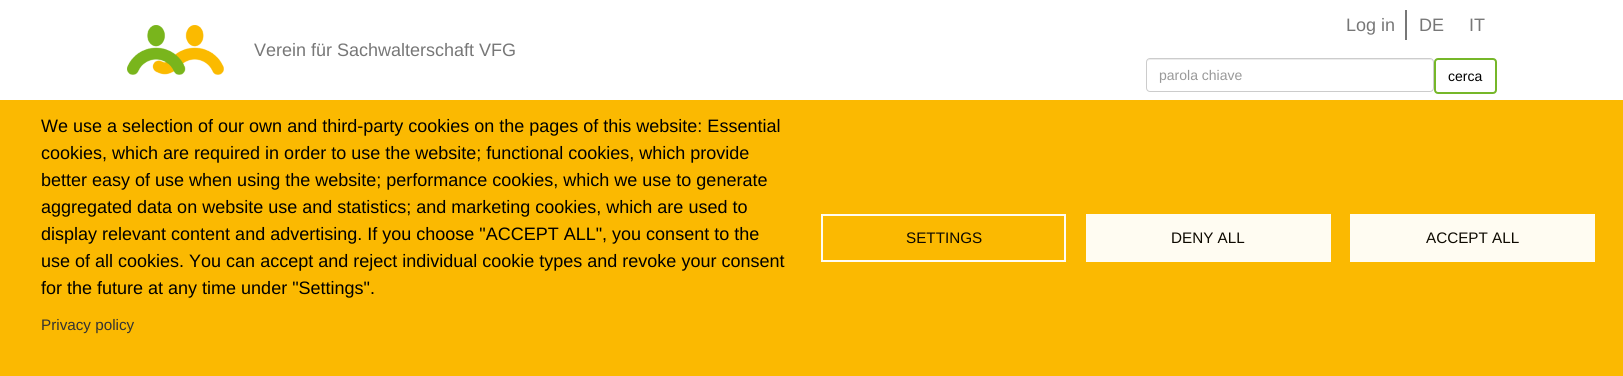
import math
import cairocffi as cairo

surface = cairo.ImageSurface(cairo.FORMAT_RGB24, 1623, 376)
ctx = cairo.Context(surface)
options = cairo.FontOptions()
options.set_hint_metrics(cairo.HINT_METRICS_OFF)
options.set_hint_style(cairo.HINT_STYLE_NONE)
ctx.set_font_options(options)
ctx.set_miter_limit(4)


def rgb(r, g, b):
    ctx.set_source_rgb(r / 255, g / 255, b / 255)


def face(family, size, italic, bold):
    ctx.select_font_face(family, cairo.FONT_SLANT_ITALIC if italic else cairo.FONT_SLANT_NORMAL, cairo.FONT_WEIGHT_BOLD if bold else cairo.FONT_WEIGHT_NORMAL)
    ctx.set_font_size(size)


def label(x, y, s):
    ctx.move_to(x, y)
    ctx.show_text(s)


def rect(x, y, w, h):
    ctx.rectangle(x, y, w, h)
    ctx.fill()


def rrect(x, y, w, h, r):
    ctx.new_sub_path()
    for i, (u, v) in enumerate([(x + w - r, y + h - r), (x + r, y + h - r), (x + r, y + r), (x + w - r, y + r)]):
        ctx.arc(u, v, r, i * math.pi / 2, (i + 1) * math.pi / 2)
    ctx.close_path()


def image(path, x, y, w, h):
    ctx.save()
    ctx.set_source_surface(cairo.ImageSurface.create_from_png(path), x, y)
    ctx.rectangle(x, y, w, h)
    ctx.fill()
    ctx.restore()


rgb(255, 255, 255)
ctx.paint()
image('image0.png', 127, 25, 97, 50)
face('Liberation Sans', 18, 0, 0)
rgb(119, 119, 119)
label(254, 56, 'Verein für Sachwalterschaft VFG')
label(1346, 31, 'Log in')
rect(1405, 10, 2, 30)
label(1419, 31, 'DE')
label(1469, 31, 'IT')
rgb(236, 236, 236)
ctx.new_path()
ctx.move_to(1150, 60)
ctx.line_to(1430, 60)
ctx.curve_to(1432, 60, 1433, 61, 1433, 63)
ctx.curve_to(1433, 61, 1432, 59, 1430, 59)
ctx.line_to(1150, 59)
ctx.curve_to(1148, 59, 1147, 61, 1147, 63)
ctx.curve_to(1147, 61, 1148, 60, 1150, 60)
ctx.close_path()
ctx.fill()
rrect(1146.5, 58.5, 287, 33, 3.5)
rgb(204, 204, 204)
ctx.set_line_width(1)
ctx.stroke()
face('Liberation Sans', 14, 0, 0)
rgb(153, 153, 153)
label(1159, 80, 'parola chiave')
rrect(1435, 59, 61, 34, 3)
rgb(118, 183, 41)
ctx.set_line_width(2)
ctx.stroke()
rgb(0, 0, 0)
label(1448, 81, 'cerca')
rgb(251, 185, 1)
rect(0, 100, 1623, 276)
face('Liberation Sans', 18, 0, 0)
rgb(0, 0, 0)
label(41, 132, 'We use a selection of our own and third-party cookies on the pages of this website: Essential')
label(41, 159, 'cookies, which are required in order to use the website; functional cookies, which provide')
label(41, 186, 'better easy of use when using the website; performance cookies, which we use to generate')
label(41, 213, 'aggregated data on website use and statistics; and marketing cookies, which are used to')
label(41, 240, 'display relevant content and advertising. If you choose "ACCEPT ALL", you consent to the')
label(41, 267, 'use of all cookies. You can accept and reject individual cookie types and revoke your consent')
label(41, 294, 'for the future at any time under "Settings".')
face('Liberation Sans', 15.25, 0, 0)
rgb(51, 51, 51)
label(41, 330, 'Privacy policy')
ctx.rectangle(822, 215, 243, 46)
rgb(255, 252, 242)
ctx.stroke()
rgb(13, 9, 0)
label(906, 243, 'SETTINGS')
rgb(255, 252, 242)
rect(1086, 214, 245, 48)
rgb(13, 9, 0)
label(1171, 243, 'DENY ALL')
rgb(255, 252, 242)
rect(1350, 214, 245, 48)
rgb(13, 9, 0)
label(1426, 243, 'ACCEPT ALL')
surface.write_to_png('render.png')
